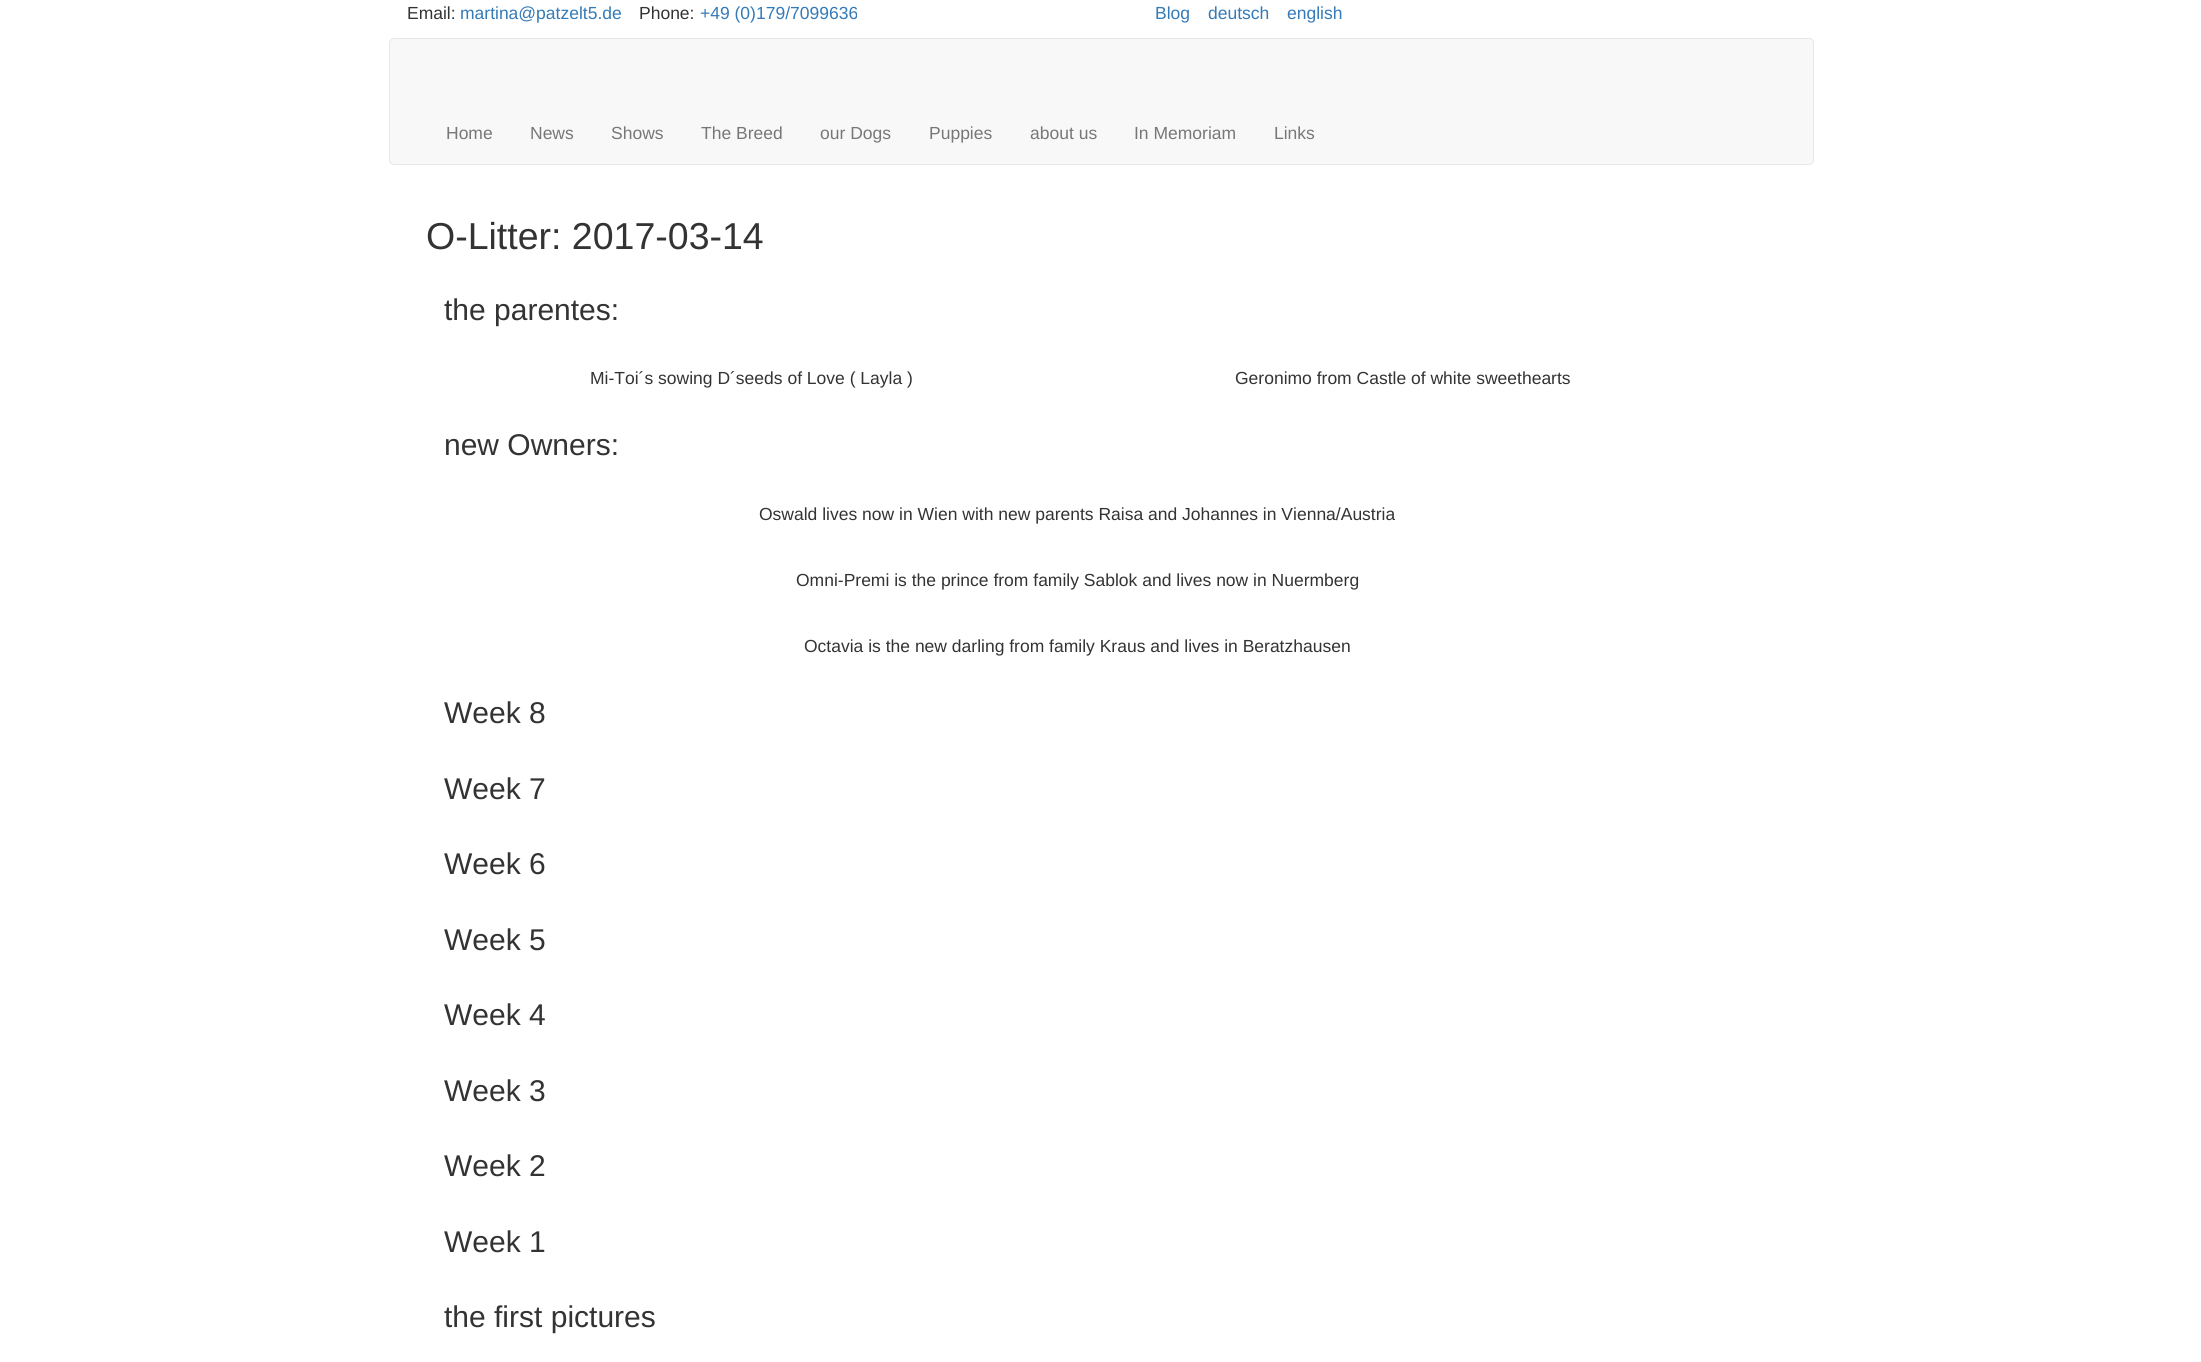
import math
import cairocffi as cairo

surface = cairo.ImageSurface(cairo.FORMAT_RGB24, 2201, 1362)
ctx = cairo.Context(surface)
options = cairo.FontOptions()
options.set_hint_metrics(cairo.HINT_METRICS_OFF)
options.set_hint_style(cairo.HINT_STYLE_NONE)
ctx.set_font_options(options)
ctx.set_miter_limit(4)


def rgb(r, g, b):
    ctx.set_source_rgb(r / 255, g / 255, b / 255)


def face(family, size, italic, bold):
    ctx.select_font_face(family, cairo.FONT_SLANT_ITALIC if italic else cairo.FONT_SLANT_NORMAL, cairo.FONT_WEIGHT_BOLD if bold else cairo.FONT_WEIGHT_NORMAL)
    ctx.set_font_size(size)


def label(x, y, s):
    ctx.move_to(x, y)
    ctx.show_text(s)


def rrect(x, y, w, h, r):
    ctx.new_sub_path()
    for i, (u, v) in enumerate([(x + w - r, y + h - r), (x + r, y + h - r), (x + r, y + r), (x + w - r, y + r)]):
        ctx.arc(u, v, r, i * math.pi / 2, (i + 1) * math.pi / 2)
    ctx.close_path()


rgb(255, 255, 255)
ctx.paint()
face('Liberation Sans', 17.5, 0, 0)
rgb(51, 51, 51)
label(407, 19, 'Email:')
rgb(51, 122, 183)
label(460, 19, 'martina@patzelt5.de')
rgb(51, 51, 51)
label(639, 19, 'Phone:')
rgb(51, 122, 183)
label(700, 19, '+49 (0)179/7099636')
label(1155, 19, 'Blog')
label(1208, 19, 'deutsch')
label(1287, 19, 'english')
rgb(248, 248, 248)
rrect(389.5, 38.5, 1424, 126, 4.5)
ctx.fill_preserve()
rgb(231, 231, 231)
ctx.set_line_width(1)
ctx.stroke()
rgb(119, 119, 119)
label(446, 139, 'Home')
label(530, 139, 'News')
label(611, 139, 'Shows')
label(701, 139, 'The Breed')
label(820, 139, 'our Dogs')
label(929, 139, 'Puppies')
label(1030, 139, 'about us')
label(1134, 139, 'In Memoriam')
label(1274, 139, 'Links')
face('Liberation Sans', 37.5, 0, 0)
rgb(51, 51, 51)
label(426, 249, 'O-Litter: 2017-03-14')
face('Liberation Sans', 30, 0, 0)
label(444, 320, 'the parentes:')
face('Liberation Sans', 17.5, 0, 0)
label(590, 384, 'Mi-Toi´s sowing D´seeds of Love ( Layla )')
label(1235, 384, 'Geronimo from Castle of white sweethearts')
face('Liberation Sans', 30, 0, 0)
label(444, 455, 'new Owners:')
face('Liberation Sans', 17.5, 0, 0)
label(759, 520, 'Oswald lives now in Wien with new parents Raisa and Johannes in Vienna/Austria')
label(796, 586, 'Omni-Premi is the prince from family Sablok and lives now in Nuermberg')
label(804, 652, 'Octavia is the new darling from family Kraus and lives in Beratzhausen')
face('Liberation Sans', 30, 0, 0)
label(444, 723, 'Week 8')
label(444, 799, 'Week 7')
label(444, 874, 'Week 6')
label(444, 950, 'Week 5')
label(444, 1025, 'Week 4')
label(444, 1101, 'Week 3')
label(444, 1176, 'Week 2')
label(444, 1252, 'Week 1')
label(444, 1327, 'the first pictures')
surface.write_to_png('render.png')
